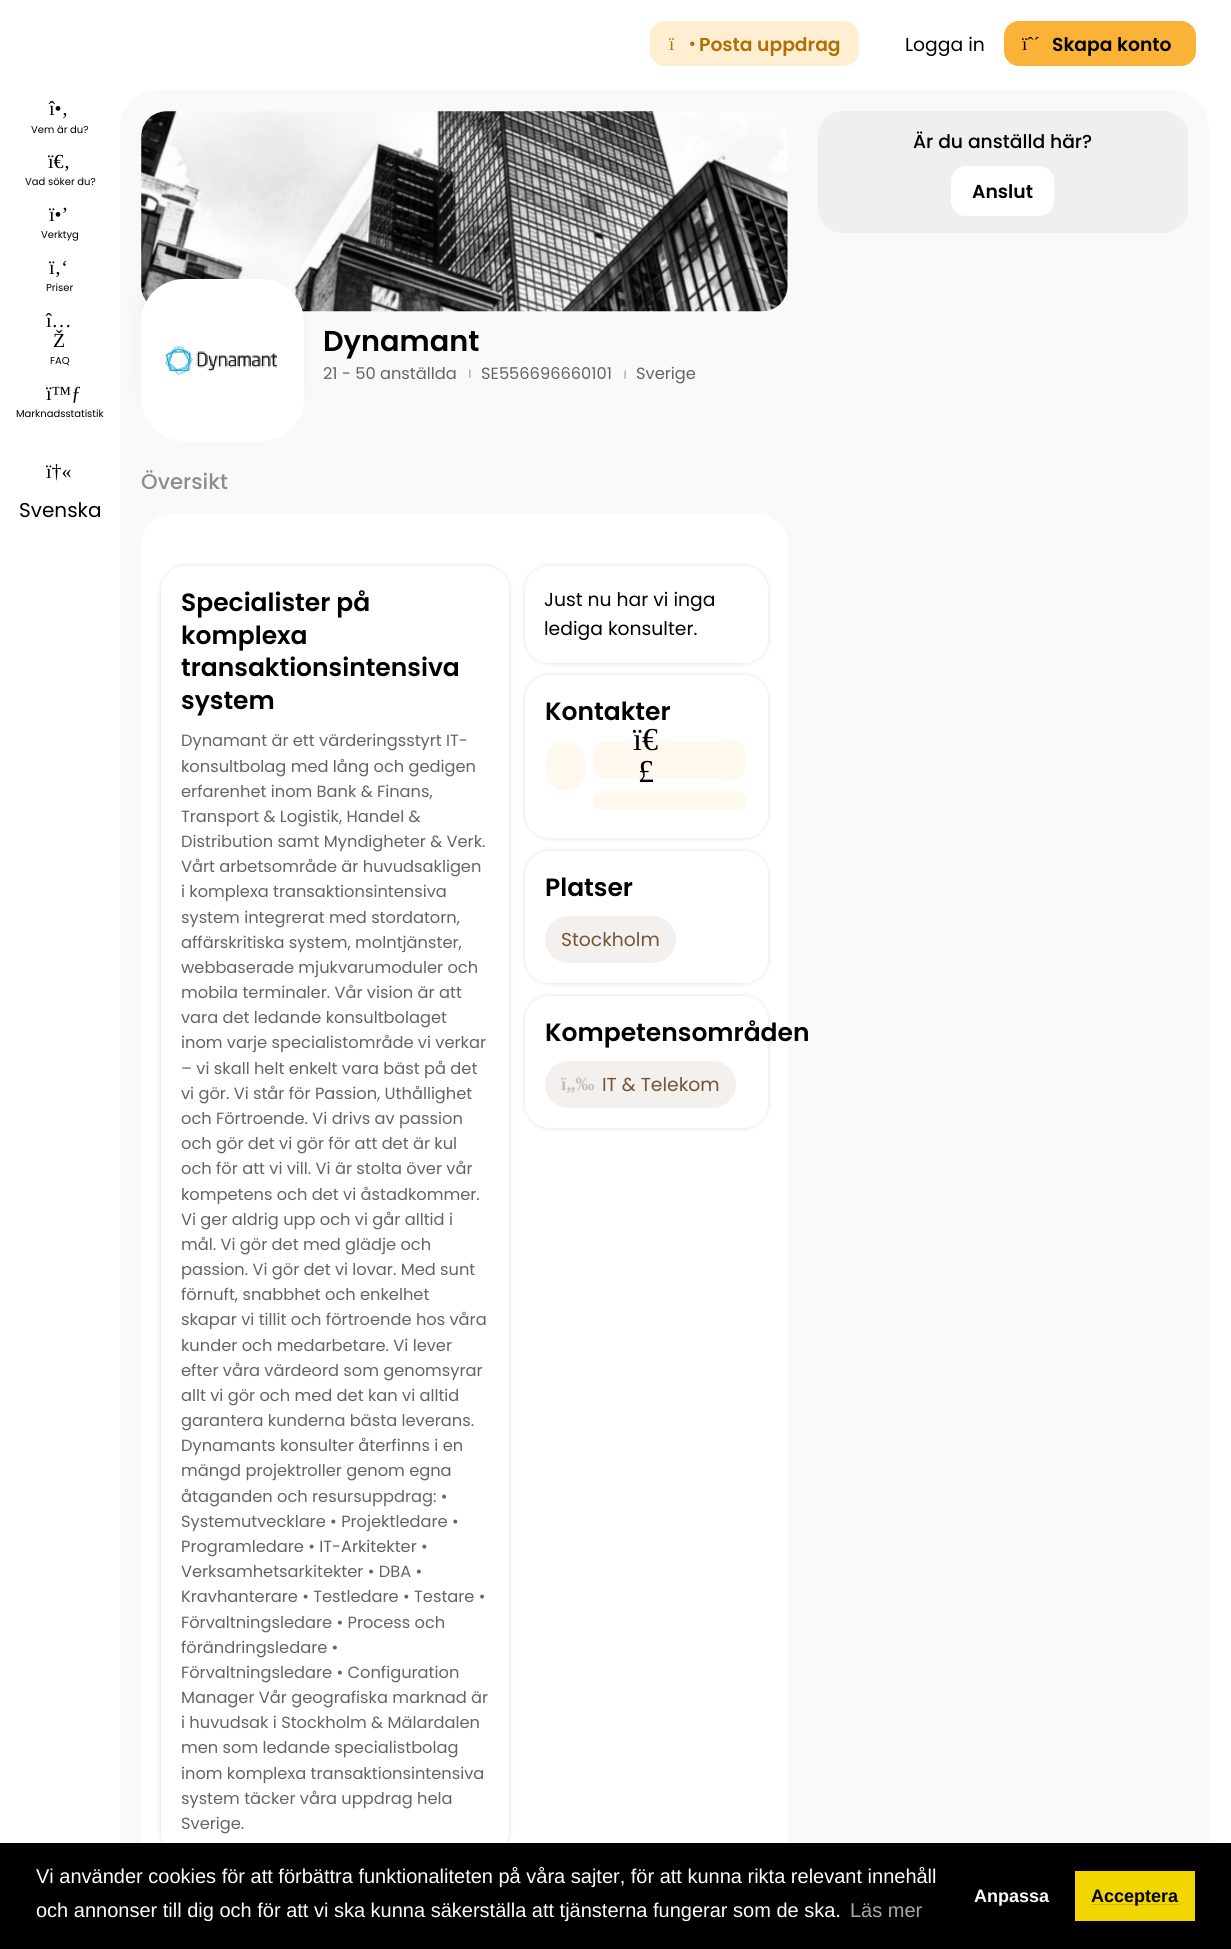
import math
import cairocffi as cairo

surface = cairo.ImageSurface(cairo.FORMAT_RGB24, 1231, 1949)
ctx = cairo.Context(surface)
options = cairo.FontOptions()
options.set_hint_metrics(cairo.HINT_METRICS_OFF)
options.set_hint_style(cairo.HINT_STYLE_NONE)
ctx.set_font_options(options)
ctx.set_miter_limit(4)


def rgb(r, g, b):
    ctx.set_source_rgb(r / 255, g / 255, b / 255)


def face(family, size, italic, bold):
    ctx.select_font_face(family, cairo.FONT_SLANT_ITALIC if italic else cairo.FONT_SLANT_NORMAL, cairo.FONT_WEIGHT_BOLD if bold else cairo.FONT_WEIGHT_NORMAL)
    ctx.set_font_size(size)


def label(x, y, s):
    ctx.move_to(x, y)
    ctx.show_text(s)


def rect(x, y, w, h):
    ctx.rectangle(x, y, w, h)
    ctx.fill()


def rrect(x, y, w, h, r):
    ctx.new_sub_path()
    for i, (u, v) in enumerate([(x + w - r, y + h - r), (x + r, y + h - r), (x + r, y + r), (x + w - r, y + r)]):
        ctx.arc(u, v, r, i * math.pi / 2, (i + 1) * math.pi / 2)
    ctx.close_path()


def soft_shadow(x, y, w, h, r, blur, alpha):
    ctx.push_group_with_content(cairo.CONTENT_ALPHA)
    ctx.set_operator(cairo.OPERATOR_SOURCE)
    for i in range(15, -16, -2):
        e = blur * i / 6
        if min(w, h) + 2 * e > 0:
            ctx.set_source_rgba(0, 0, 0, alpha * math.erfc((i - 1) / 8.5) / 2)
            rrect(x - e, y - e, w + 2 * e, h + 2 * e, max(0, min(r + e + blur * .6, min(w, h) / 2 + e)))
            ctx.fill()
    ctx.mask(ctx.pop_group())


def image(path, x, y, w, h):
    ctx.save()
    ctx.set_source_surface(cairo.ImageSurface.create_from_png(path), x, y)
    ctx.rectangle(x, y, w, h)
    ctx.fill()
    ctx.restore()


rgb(255, 255, 255)
ctx.paint()
face('Liberation Serif', 20, 0, 0)
rgb(0, 0, 0)
label(49, 115, 'î•‚')
face('Poppins', 10, 0, 0)
label(31, 133, 'Vem är du?')
face('Liberation Serif', 20, 0, 0)
label(48, 168, 'ï€‚')
face('Poppins', 10, 0, 0)
label(25, 185, 'Vad söker du?')
face('Liberation Serif', 20, 0, 0)
label(49, 221, 'ï•’')
face('Poppins', 10, 0, 0)
label(41, 238, 'Verktyg')
face('Liberation Serif', 20, 0, 0)
label(49, 274, 'ï‚‘')
face('Poppins', 10, 0, 0)
label(46, 291, 'Priser')
face('Liberation Serif', 20, 0, 0)
label(46, 327, 'î…')
label(53, 347, 'Ž')
face('Poppins', 10, 0, 0)
label(50, 364, 'FAQ')
face('Liberation Serif', 20, 0, 0)
label(46, 400, 'ï™ƒ')
face('Poppins', 10, 0, 0)
label(16, 417, 'Marknadsstatistik')
face('Liberation Serif', 20, 0, 0)
label(46, 478, 'ï†«')
face('Poppins', 20, 0, 0)
label(19, 517, 'Svenska')
rgb(254, 238, 210)
rrect(650, 21, 209, 45, 15)
ctx.fill()
face('Liberation Serif', 18.75, 0, 0)
rgb(175, 112, 4)
label(669, 50, 'ï')
label(689, 50, '•')
face('Poppins SemiBold', 18.75, 0, 0)
label(699, 51, 'Posta uppdrag')
face('Poppins', 18.75, 0, 0)
rgb(0, 0, 0)
label(905, 51, 'Logga in')
rgb(251, 179, 55)
rrect(1004, 21, 192, 45, 15)
ctx.fill()
face('Liberation Serif', 18.75, 0, 0)
rgb(0, 0, 0)
label(1022, 50, 'ïˆ´')
face('Poppins SemiBold', 18.75, 0, 0)
label(1052, 51, 'Skapa konto')
rgb(249, 249, 249)
rrect(120, 90, 1089, 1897, 38)
ctx.fill()
rgb(239, 239, 239)
rrect(818, 111, 370, 122, 25)
ctx.fill()
face('Poppins Medium', 18.75, 0, 0)
rgb(0, 0, 0)
label(913, 148, 'Är du anställd här?')
rgb(255, 255, 255)
rrect(951, 166, 103, 50, 15)
ctx.fill()
face('Poppins SemiBold', 18.75, 0, 0)
rgb(0, 0, 0)
label(972, 198, 'Anslut')
image('image0.png', 141, 111, 647, 201)
rgb(0, 0, 0)
soft_shadow(141, 260, 163, 163, 43, 9.5, 0.04)
rgb(255, 255, 255)
rrect(141, 279, 163, 162, 43)
ctx.fill()
image('image1.png', 161, 338, 116, 40)
face('Poppins SemiBold', 28.75, 0, 0)
rgb(0, 0, 0)
label(323, 351, 'Dynamant')
face('Poppins', 16.25, 0, 0)
rgb(100, 100, 100)
label(323, 379, '21 - 50 anställda')
image('image2.png', 469, 369, 2, 9)
label(481, 379, 'SE556696660101')
image('image3.png', 624, 370, 2, 9)
label(636, 379, 'Sverige')
face('Poppins Medium', 21.25, 0, 0)
rgb(143, 141, 139)
label(141, 489, 'Översikt')
rgb(255, 255, 255)
rrect(141, 514, 647, 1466, 31)
ctx.fill()
ctx.save()
ctx.set_fill_rule(cairo.FILL_RULE_EVEN_ODD)
ctx.new_path()
ctx.move_to(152, 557)
ctx.line_to(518, 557)
ctx.line_to(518, 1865)
ctx.line_to(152, 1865)
ctx.close_path()
ctx.move_to(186, 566)
ctx.line_to(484, 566)
ctx.curve_to(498, 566, 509, 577, 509, 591)
ctx.line_to(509, 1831)
ctx.curve_to(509, 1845, 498, 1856, 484, 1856)
ctx.line_to(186, 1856)
ctx.curve_to(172, 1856, 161, 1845, 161, 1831)
ctx.line_to(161, 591)
ctx.curve_to(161, 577, 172, 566, 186, 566)
ctx.close_path()
ctx.clip()
rgb(0, 0, 0)
soft_shadow(161, 566, 348, 1290, 25, 2.5, 0.14)
ctx.restore()
face('Poppins SemiBold', 25, 0, 0)
rgb(0, 0, 0)
label(181, 611, 'Specialister på')
label(181, 644, 'komplexa')
label(181, 676, 'transaktionsintensiva')
label(181, 709, 'system')
face('Poppins', 16.25, 0, 0)
rgb(100, 100, 100)
label(181, 746, 'Dynamant är ett värderingsstyrt IT-')
label(181, 772, 'konsultbolag med lång och gedigen')
label(181, 797, 'erfarenhet inom Bank & Finans,')
label(181, 822, 'Transport & Logistik, Handel &')
label(181, 847, 'Distribution samt Myndigheter & Verk.')
label(181, 872, 'Vårt arbetsområde är huvudsakligen')
label(181, 897, 'i komplexa transaktionsintensiva')
label(181, 923, 'system integrerat med stordatorn,')
label(181, 948, 'affärskritiska system, molntjänster,')
label(181, 973, 'webbaserade mjukvarumoduler och')
label(181, 998, 'mobila terminaler. Vår vision är att')
label(181, 1023, 'vara det ledande konsultbolaget')
label(181, 1048, 'inom varje specialistområde vi verkar')
label(181, 1074, '– vi skall helt enkelt vara bäst på det')
label(181, 1099, 'vi gör. Vi står för Passion, Uthållighet')
label(181, 1124, 'och Förtroende. Vi drivs av passion')
label(181, 1149, 'och gör det vi gör för att det är kul')
label(181, 1174, 'och för att vi vill. Vi är stolta över vår')
label(181, 1200, 'kompetens och det vi åstadkommer.')
label(181, 1225, 'Vi ger aldrig upp och vi går alltid i')
label(181, 1250, 'mål. Vi gör det med glädje och')
label(181, 1275, 'passion. Vi gör det vi lovar. Med sunt')
label(181, 1300, 'förnuft, snabbhet och enkelhet')
label(181, 1325, 'skapar vi tillit och förtroende hos våra')
label(181, 1351, 'kunder och medarbetare. Vi lever')
label(181, 1376, 'efter våra värdeord som genomsyrar')
label(181, 1401, 'allt vi gör och med det kan vi alltid')
label(181, 1426, 'garantera kunderna bästa leverans.')
label(181, 1451, 'Dynamants konsulter återfinns i en')
label(181, 1476, 'mängd projektroller genom egna')
label(181, 1502, 'åtaganden och resursuppdrag: •')
label(181, 1527, 'Systemutvecklare • Projektledare •')
label(181, 1552, 'Programledare • IT-Arkitekter •')
label(181, 1577, 'Verksamhetsarkitekter • DBA •')
label(181, 1602, 'Kravhanterare • Testledare • Testare •')
label(181, 1628, 'Förvaltningsledare • Process och')
label(181, 1653, 'förändringsledare •')
label(181, 1678, 'Förvaltningsledare • Configuration')
label(181, 1703, 'Manager Vår geografiska marknad är')
label(181, 1728, 'i huvudsak i Stockholm & Mälardalen')
label(181, 1753, 'men som ledande specialistbolag')
label(181, 1779, 'inom komplexa transaktionsintensiva')
label(181, 1804, 'system täcker våra uppdrag hela')
label(181, 1829, 'Sverige.')
ctx.save()
ctx.set_fill_rule(cairo.FILL_RULE_EVEN_ODD)
ctx.new_path()
ctx.move_to(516, 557)
ctx.line_to(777, 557)
ctx.line_to(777, 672)
ctx.line_to(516, 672)
ctx.close_path()
ctx.move_to(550, 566)
ctx.line_to(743, 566)
ctx.curve_to(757, 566, 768, 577, 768, 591)
ctx.line_to(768, 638)
ctx.curve_to(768, 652, 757, 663, 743, 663)
ctx.line_to(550, 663)
ctx.curve_to(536, 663, 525, 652, 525, 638)
ctx.line_to(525, 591)
ctx.curve_to(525, 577, 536, 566, 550, 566)
ctx.close_path()
ctx.clip()
rgb(0, 0, 0)
soft_shadow(525, 566, 243, 97, 25, 2.5, 0.14)
ctx.restore()
face('Poppins', 18.75, 0, 0)
rgb(0, 0, 0)
label(544, 606, 'Just nu har vi inga')
label(544, 635, 'lediga konsulter.')
ctx.save()
ctx.set_fill_rule(cairo.FILL_RULE_EVEN_ODD)
ctx.new_path()
ctx.move_to(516, 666)
ctx.line_to(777, 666)
ctx.line_to(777, 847)
ctx.line_to(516, 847)
ctx.close_path()
ctx.move_to(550, 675)
ctx.line_to(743, 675)
ctx.curve_to(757, 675, 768, 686, 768, 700)
ctx.line_to(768, 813)
ctx.curve_to(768, 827, 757, 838, 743, 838)
ctx.line_to(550, 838)
ctx.curve_to(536, 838, 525, 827, 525, 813)
ctx.line_to(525, 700)
ctx.curve_to(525, 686, 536, 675, 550, 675)
ctx.close_path()
ctx.clip()
rgb(0, 0, 0)
soft_shadow(525, 675, 243, 163, 25, 2.5, 0.14)
ctx.restore()
face('Poppins SemiBold', 25, 0, 0)
label(545, 720, 'Kontakter')
rgb(255, 248, 238)
rrect(593, 741, 153, 38, 13)
ctx.fill()
face('Liberation Serif', 32, 0, 0)
rgb(0, 0, 0)
label(633, 750, 'ï€')
label(638, 782, '£')
rgb(255, 248, 238)
rrect(546, 741, 39, 50, 19.5)
ctx.fill()
rrect(593, 791, 153, 19, 9)
ctx.fill()
ctx.save()
ctx.set_fill_rule(cairo.FILL_RULE_EVEN_ODD)
ctx.new_path()
ctx.move_to(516, 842)
ctx.line_to(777, 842)
ctx.line_to(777, 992)
ctx.line_to(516, 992)
ctx.close_path()
ctx.move_to(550, 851)
ctx.line_to(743, 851)
ctx.curve_to(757, 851, 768, 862, 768, 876)
ctx.line_to(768, 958)
ctx.curve_to(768, 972, 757, 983, 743, 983)
ctx.line_to(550, 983)
ctx.curve_to(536, 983, 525, 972, 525, 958)
ctx.line_to(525, 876)
ctx.curve_to(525, 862, 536, 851, 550, 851)
ctx.close_path()
ctx.clip()
rgb(0, 0, 0)
soft_shadow(525, 851, 243, 132, 25, 2.5, 0.14)
ctx.restore()
face('Poppins SemiBold', 25, 0, 0)
rgb(0, 0, 0)
label(545, 896, 'Platser')
rgb(243, 240, 237)
rrect(545, 916, 131, 47, 23.5)
ctx.fill()
face('Poppins', 18.75, 0, 0)
rgb(116, 84, 52)
label(561, 946, 'Stockholm')
ctx.save()
ctx.set_fill_rule(cairo.FILL_RULE_EVEN_ODD)
ctx.new_path()
ctx.move_to(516, 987)
ctx.line_to(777, 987)
ctx.line_to(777, 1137)
ctx.line_to(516, 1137)
ctx.close_path()
ctx.move_to(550, 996)
ctx.line_to(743, 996)
ctx.curve_to(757, 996, 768, 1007, 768, 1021)
ctx.line_to(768, 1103)
ctx.curve_to(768, 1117, 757, 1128, 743, 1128)
ctx.line_to(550, 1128)
ctx.curve_to(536, 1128, 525, 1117, 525, 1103)
ctx.line_to(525, 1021)
ctx.curve_to(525, 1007, 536, 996, 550, 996)
ctx.close_path()
ctx.clip()
rgb(0, 0, 0)
soft_shadow(525, 996, 243, 132, 25, 2.5, 0.14)
ctx.restore()
face('Poppins SemiBold', 25, 0, 0)
rgb(0, 0, 0)
label(545, 1041, 'Kompetensområden')
rgb(243, 240, 237)
rrect(545, 1061, 191, 47, 23.5)
ctx.fill()
face('Liberation Serif', 18.75, 0, 1)
rgb(194, 192, 190)
label(561, 1090, 'ï„‰')
face('Poppins', 18.75, 0, 0)
rgb(116, 84, 52)
label(602, 1091, 'IT & Telekom')
rgb(0, 0, 0)
rect(0, 1843, 1231, 106)
face('Liberation Sans', 20, 0, 0)
rgb(255, 255, 255)
label(36, 1883, 'Vi använder cookies för att förbättra funktionaliteten på våra sajter, för att kunna rikta relevant innehåll')
label(36, 1917, 'och annonser till dig och för att vi ska kunna säkerställa att tjänsterna fungerar som de ska.')
rgb(169, 169, 169)
label(850, 1917, 'Läs mer')
face('Liberation Sans', 18, 0, 1)
rgb(255, 255, 255)
label(974, 1902, 'Anpassa')
rgb(241, 214, 0)
rect(1075, 1871, 120, 50)
rgb(205, 182, 0)
rect(1091, 1904, 88, 1)
rgb(0, 0, 0)
label(1091, 1902, 'Acceptera')
surface.write_to_png('render.png')
